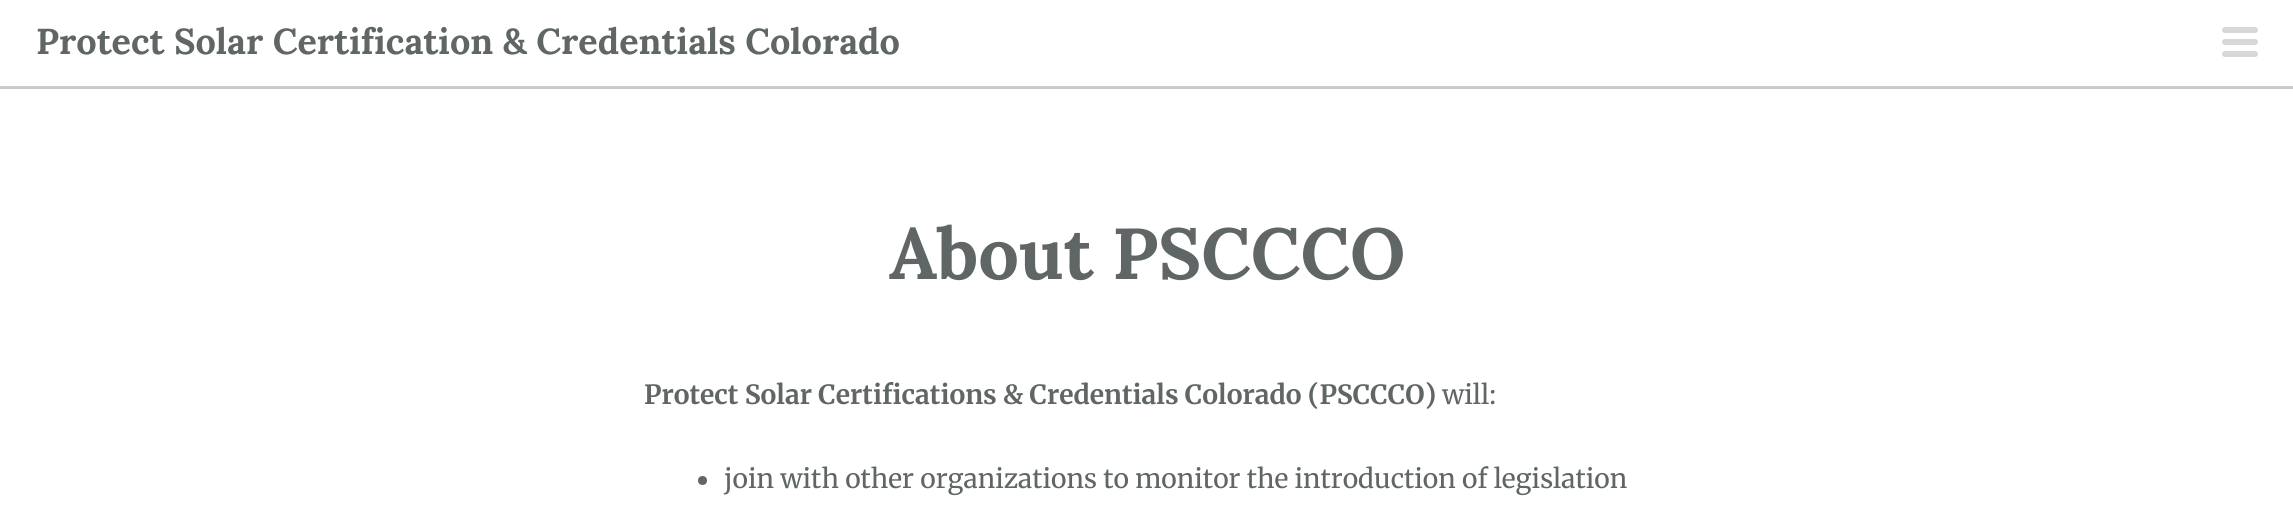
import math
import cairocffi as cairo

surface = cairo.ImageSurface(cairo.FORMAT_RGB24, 2293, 518)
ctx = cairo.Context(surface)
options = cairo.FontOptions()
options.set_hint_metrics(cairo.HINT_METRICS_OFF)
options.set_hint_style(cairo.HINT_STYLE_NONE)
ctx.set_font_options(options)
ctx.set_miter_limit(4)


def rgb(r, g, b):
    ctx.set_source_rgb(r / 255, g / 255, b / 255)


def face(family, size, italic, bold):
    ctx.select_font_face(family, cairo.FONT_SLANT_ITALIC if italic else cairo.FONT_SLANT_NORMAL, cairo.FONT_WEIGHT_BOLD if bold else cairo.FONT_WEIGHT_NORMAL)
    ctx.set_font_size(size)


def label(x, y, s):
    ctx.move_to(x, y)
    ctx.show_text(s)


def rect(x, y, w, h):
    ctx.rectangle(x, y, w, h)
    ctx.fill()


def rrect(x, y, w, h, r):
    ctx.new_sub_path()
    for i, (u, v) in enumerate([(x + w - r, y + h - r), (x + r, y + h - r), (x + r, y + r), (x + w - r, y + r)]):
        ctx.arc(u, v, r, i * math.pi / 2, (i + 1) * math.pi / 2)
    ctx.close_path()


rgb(255, 255, 255)
ctx.paint()
rgb(200, 203, 204)
rect(0, 86, 2293, 3)
face('Lora', 36, 0, 1)
rgb(96, 102, 102)
label(36, 54, 'Protect Solar Certification & Credentials Colorado')
face('Lora', 72, 0, 1)
label(889, 279, 'About PSCCCO')
face('Merriweather', 26.4, 0, 1)
label(644, 404, 'Protect Solar Certifications & Credentials Colorado (PSCCCO)')
face('Merriweather', 26.4, 0, 0)
label(1442, 404, 'will:')
ctx.new_path()
ctx.arc(702.5, 480.5, 4.5, 0, 2 * math.pi)
ctx.fill()
label(724, 488, 'join with other organizations to monitor the introduction of legislation')
rgb(215, 217, 217)
rrect(2222, 39, 36, 6, 3)
ctx.fill()
rrect(2222, 27, 36, 6, 3)
ctx.fill()
rrect(2222, 51, 36, 6, 3)
ctx.fill()
surface.write_to_png('render.png')
